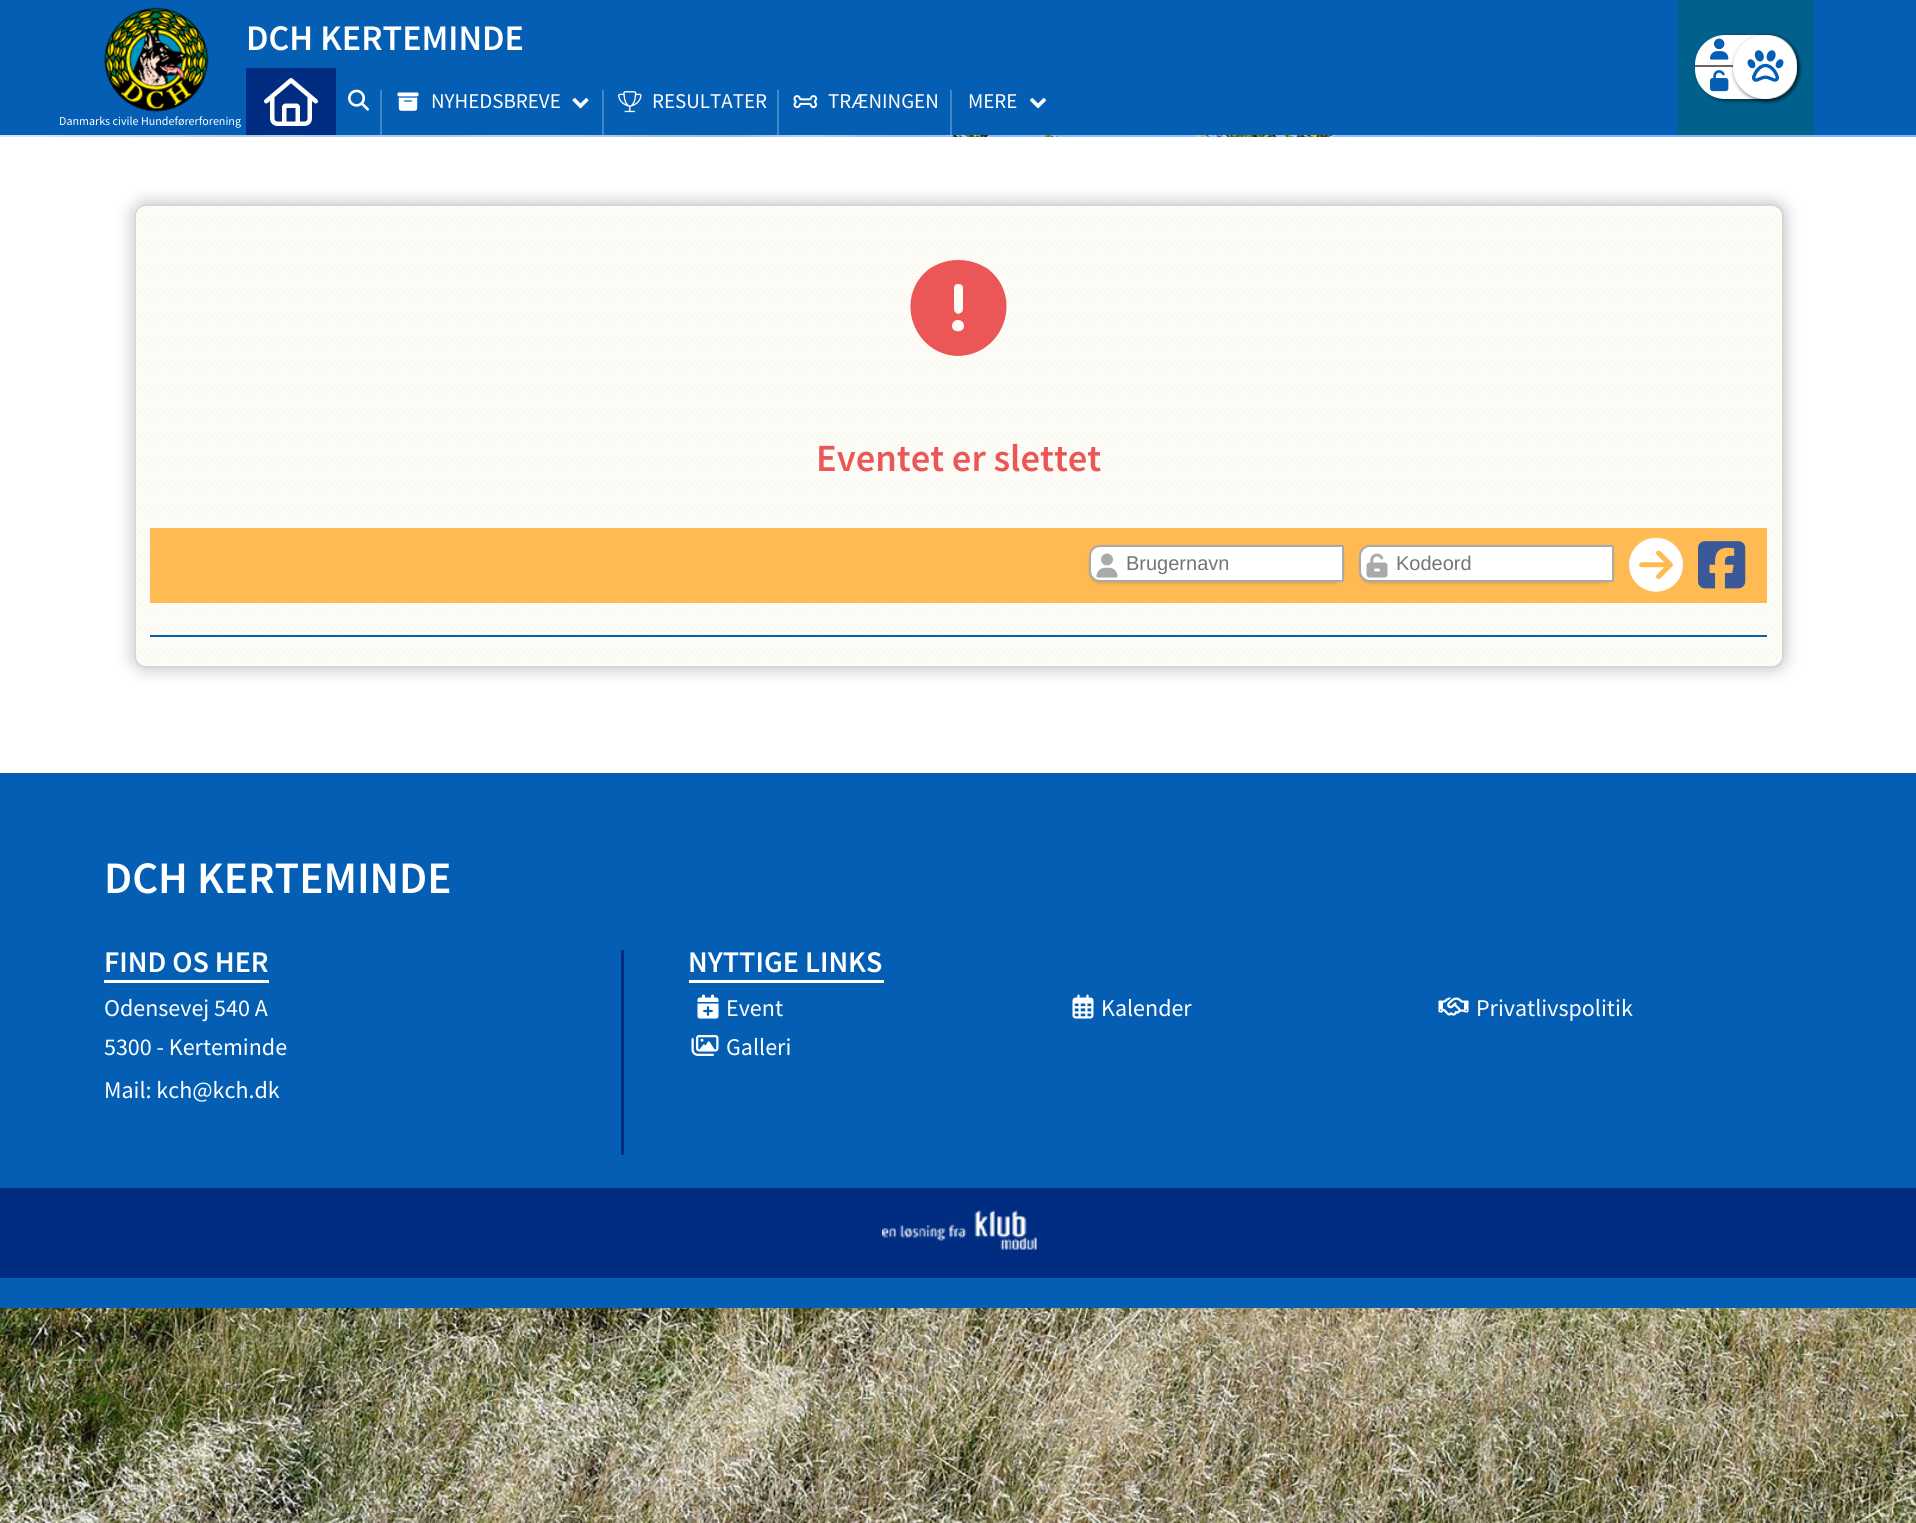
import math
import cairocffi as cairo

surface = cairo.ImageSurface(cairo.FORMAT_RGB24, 1916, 1523)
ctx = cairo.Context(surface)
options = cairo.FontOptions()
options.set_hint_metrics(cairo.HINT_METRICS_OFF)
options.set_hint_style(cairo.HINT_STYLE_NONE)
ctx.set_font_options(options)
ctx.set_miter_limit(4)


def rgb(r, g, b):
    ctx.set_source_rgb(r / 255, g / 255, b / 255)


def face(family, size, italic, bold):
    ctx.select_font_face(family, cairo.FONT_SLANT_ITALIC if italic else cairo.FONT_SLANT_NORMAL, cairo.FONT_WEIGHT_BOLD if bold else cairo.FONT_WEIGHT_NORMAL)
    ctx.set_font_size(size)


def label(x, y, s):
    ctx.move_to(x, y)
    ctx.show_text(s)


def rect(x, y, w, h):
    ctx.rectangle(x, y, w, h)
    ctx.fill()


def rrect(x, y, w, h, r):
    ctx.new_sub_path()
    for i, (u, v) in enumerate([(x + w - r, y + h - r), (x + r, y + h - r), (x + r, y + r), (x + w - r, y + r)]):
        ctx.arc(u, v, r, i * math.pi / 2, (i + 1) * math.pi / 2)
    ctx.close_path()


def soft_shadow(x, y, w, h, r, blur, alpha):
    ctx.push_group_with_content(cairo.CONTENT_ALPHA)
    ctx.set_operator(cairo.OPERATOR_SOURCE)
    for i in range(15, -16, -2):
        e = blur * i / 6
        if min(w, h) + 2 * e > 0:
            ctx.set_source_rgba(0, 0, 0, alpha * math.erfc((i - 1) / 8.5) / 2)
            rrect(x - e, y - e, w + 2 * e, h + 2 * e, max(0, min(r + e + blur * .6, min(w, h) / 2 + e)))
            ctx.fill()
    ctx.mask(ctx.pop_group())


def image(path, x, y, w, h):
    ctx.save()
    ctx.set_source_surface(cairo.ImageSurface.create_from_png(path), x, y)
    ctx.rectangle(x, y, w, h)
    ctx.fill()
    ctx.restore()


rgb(255, 255, 255)
ctx.paint()
rgb(4, 95, 180)
rect(0, 0, 1916, 135)
image('image0.png', 104, 7, 105, 105)
face('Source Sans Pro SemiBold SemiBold', 36, 0, 0)
rgb(255, 255, 255)
label(246, 50, 'DCH KERTEMINDE')
face('Source Sans Pro', 12, 0, 0)
label(59, 125, 'Danmarks civile Hundeførerforening')
rgb(0, 45, 130)
rect(246, 68, 90, 67)
image('image1.png', 264, 78, 54, 48)
image('image2.png', 348, 89, 21, 22)
rgb(67, 135, 199)
rect(380, 90, 2, 45)
image('image3.png', 397, 92, 22, 19)
face('Source Sans Pro', 21, 0, 0)
rgb(255, 255, 255)
label(431, 108, 'NYHEDSBREVE')
image('image4.png', 572, 98, 17, 11)
rgb(67, 135, 199)
rect(602, 90, 2, 45)
image('image5.png', 618, 91, 24, 22)
rgb(255, 255, 255)
label(652, 108, 'RESULTATER')
rgb(67, 135, 199)
rect(777, 90, 2, 45)
image('image6.png', 793, 95, 25, 14)
rgb(255, 255, 255)
label(828, 108, 'TRÆNINGEN')
rgb(67, 135, 199)
rect(950, 90, 2, 45)
rgb(255, 255, 255)
label(968, 108, 'MERE')
image('image7.png', 1029, 98, 18, 11)
rgb(0, 97, 141)
rect(1677, 0, 137, 135)
rgb(0, 0, 0)
soft_shadow(1697, 36, 102, 65, 30, 2, 0.5)
rgb(255, 255, 255)
rrect(1695, 35, 102, 64, 30)
ctx.fill()
rgb(102, 102, 102)
rect(1695, 65, 39, 2)
image('image8.png', 1710, 38, 19, 22)
ctx.save()
rrect(1695, 35, 102, 64, 30)
ctx.clip()
rgb(255, 255, 255)
rect(1745, 36, 52, 30)
ctx.restore()
image('image9.png', 1710, 70, 19, 22)
ctx.save()
rrect(1695, 35, 102, 64, 30)
ctx.clip()
rgb(255, 255, 255)
rect(1745, 68, 52, 30)
ctx.restore()
rgb(0, 0, 0)
soft_shadow(1734, 36, 65, 65, 32.5, 2, 0.5)
rgb(255, 255, 255)
ctx.arc(1765, 67, 32, 0, 2 * math.pi)
ctx.fill()
image('image10.png', 1747, 50, 37, 32)
image('image11.png', 0, 135, 1916, 1388)
rect(0, 137, 1916, 636)
rgb(0, 0, 0)
soft_shadow(131, 201, 1656, 470, 15, 7.5, 0.2)
image('image12.png', 133, 204, 1651, 464)
rrect(135, 205, 1648, 462, 11)
rgb(214, 214, 214)
ctx.stroke()
rgb(235, 87, 87)
ctx.new_path()
ctx.move_to(958, 356)
ctx.curve_to(1004, 355, 1024, 297, 988, 269)
ctx.curve_to(979, 263, 969, 260, 958, 260)
ctx.curve_to(948, 260, 938, 263, 929, 269)
ctx.curve_to(893, 297, 913, 355, 958, 356)
ctx.close_path()
ctx.move_to(958, 284)
ctx.curve_to(961, 284, 963, 285, 963, 288)
ctx.line_to(963, 309)
ctx.curve_to(963, 312, 961, 313, 958, 314)
ctx.curve_to(956, 313, 954, 312, 954, 309)
ctx.line_to(954, 288)
ctx.curve_to(954, 285, 956, 284, 958, 284)
ctx.close_path()
ctx.move_to(952, 326)
ctx.curve_to(952, 318, 964, 318, 964, 326)
ctx.curve_to(964, 333, 952, 333, 952, 326)
ctx.close_path()
ctx.fill()
face('Source Sans Pro SemiBold SemiBold', 38.5, 0, 0)
label(816, 471, 'Eventet er slettet')
rgb(255, 186, 83)
rect(150, 528, 1617, 75)
rgb(0, 0, 0)
soft_shadow(1089, 546, 255, 38, 11, 1, 0.1)
rgb(255, 255, 255)
ctx.new_path()
ctx.move_to(1100, 546)
ctx.line_to(1343, 546)
ctx.line_to(1343, 581)
ctx.line_to(1100, 581)
ctx.curve_to(1094.5, 581, 1090, 576.5, 1090, 571)
ctx.line_to(1090, 556)
ctx.curve_to(1090, 550.5, 1094.5, 546, 1100, 546)
ctx.close_path()
ctx.fill_preserve()
rgb(170, 170, 170)
ctx.stroke()
image('image13.png', 1096, 553, 22, 25)
face('Liberation Sans', 20, 0, 0)
rgb(117, 117, 117)
label(1126, 570, 'Brugernavn')
rgb(0, 0, 0)
soft_shadow(1359, 546, 255, 38, 11, 1, 0.1)
rgb(255, 255, 255)
ctx.new_path()
ctx.move_to(1370, 546)
ctx.line_to(1613, 546)
ctx.line_to(1613, 581)
ctx.line_to(1370, 581)
ctx.curve_to(1364.5, 581, 1360, 576.5, 1360, 571)
ctx.line_to(1360, 556)
ctx.curve_to(1360, 550.5, 1364.5, 546, 1370, 546)
ctx.close_path()
ctx.fill_preserve()
rgb(170, 170, 170)
ctx.stroke()
image('image14.png', 1366, 553, 22, 25)
rgb(117, 117, 117)
label(1396, 570, 'Kodeord')
image('image15.png', 1629, 537, 54, 55)
image('image16.png', 1698, 541, 48, 48)
rgb(4, 95, 180)
rect(150, 635, 1617, 2)
rect(0, 773, 1916, 535)
face('Source Sans Pro SemiBold SemiBold', 45, 0, 0)
rgb(255, 255, 255)
label(104, 893, 'DCH KERTEMINDE')
face('Source Sans Pro SemiBold SemiBold', 30, 0, 0)
label(104, 972, 'FIND OS HER')
rect(104, 980, 165, 3)
face('Source Sans Pro', 24, 0, 0)
label(104, 1016, 'Odensevej 540 A')
label(104, 1055, '5300 - Kerteminde')
label(104, 1098, 'Mail: kch@kch.dk')
rgb(0, 45, 130)
rect(621, 950, 3, 205)
face('Source Sans Pro SemiBold SemiBold', 30, 0, 0)
rgb(255, 255, 255)
label(688, 972, 'NYTTIGE LINKS')
rect(689, 980, 195, 3)
image('image17.png', 697, 994, 22, 25)
face('Source Sans Pro', 24, 0, 0)
label(726, 1016, 'Event')
image('image18.png', 1072, 994, 22, 25)
label(1101, 1016, 'Kalender')
image('image19.png', 1438, 997, 31, 19)
label(1476, 1016, 'Privatlivspolitik')
image('image20.png', 691, 1035, 28, 21)
label(726, 1055, 'Galleri')
rgb(0, 45, 130)
rect(0, 1188, 1916, 90)
image('image21.png', 882, 1210, 155, 40)
surface.write_to_png('render.png')
